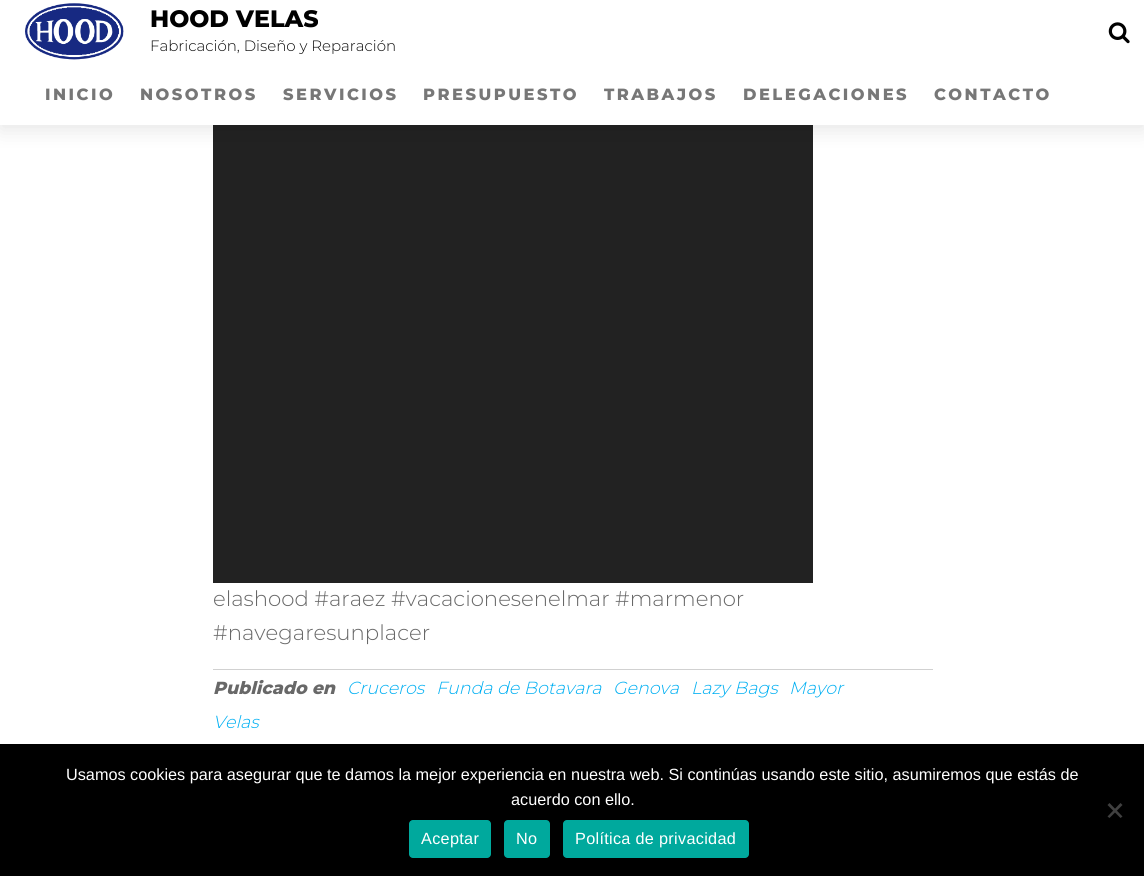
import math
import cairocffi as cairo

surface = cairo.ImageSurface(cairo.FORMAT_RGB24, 1144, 876)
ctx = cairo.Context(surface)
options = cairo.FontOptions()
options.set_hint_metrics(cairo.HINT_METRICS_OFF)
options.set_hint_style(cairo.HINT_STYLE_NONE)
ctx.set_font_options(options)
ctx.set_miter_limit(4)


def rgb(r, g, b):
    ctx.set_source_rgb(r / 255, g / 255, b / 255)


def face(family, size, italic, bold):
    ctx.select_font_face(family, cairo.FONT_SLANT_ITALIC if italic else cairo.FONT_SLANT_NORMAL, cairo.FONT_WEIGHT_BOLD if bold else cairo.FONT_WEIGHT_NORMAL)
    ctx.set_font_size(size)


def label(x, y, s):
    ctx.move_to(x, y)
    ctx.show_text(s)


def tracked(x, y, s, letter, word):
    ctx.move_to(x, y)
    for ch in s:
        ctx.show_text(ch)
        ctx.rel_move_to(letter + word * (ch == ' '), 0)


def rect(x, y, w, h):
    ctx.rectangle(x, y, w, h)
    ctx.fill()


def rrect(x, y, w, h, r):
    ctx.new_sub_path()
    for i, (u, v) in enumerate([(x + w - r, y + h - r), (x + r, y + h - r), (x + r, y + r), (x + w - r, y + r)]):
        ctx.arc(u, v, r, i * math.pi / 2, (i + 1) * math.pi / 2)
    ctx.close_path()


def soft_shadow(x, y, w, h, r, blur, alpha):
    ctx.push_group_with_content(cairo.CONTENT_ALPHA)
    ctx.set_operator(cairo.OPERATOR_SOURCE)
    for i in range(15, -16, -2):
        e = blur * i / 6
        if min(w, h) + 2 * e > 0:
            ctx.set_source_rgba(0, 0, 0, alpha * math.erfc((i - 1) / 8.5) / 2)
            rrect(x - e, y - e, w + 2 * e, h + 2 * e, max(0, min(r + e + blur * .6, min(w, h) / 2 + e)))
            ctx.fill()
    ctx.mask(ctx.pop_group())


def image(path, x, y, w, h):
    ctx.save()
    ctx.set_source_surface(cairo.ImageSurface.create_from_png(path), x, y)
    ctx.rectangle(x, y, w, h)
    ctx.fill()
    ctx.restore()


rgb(255, 255, 255)
ctx.paint()
rgb(34, 34, 34)
rect(213, 125, 600, 458)
rgb(0, 0, 0)
soft_shadow(0, 5, 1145, 125, 0, 10, 0.1)
rgb(255, 255, 255)
rect(0, 0, 1144, 125)
image('image0.png', 25, 3, 99, 57)
face('Montserrat ExtraBold', 23.75, 0, 0)
rgb(0, 0, 0)
label(150, 27, 'HOOD VELAS')
face('Montserrat Light', 15, 0, 0)
rgb(10, 10, 10)
label(150, 51, 'Fabricación, Diseño y Reparación')
image('image1.png', 1108, 22, 22, 22)
face('Montserrat ExtraBold', 16.25, 0, 0)
rgb(119, 119, 119)
tracked(45, 100, 'INICIO', 2.5, 0)
tracked(140, 100, 'NOSOTROS', 2.5, 0)
tracked(283, 100, 'SERVICIOS', 2.5, 0)
tracked(423, 100, 'PRESUPUESTO', 2.5, 0)
tracked(604, 100, 'TRABAJOS', 2.5, 0)
tracked(743, 100, 'DELEGACIONES', 2.5, 0)
tracked(934, 100, 'CONTACTO', 2.5, 0)
face('Montserrat Light', 21.25, 0, 0)
rgb(104, 104, 104)
label(213, 606, 'elashood #araez #vacacionesenelmar #marmenor')
label(213, 640, '#navegaresunplacer')
rgb(209, 209, 209)
rect(213, 669, 720, 1)
face('Montserrat ExtraBold', 17.5, 1, 0)
rgb(104, 104, 104)
label(213, 694, 'Publicado en')
face('Montserrat Light', 17.5, 1, 0)
rgb(0, 175, 242)
label(347, 694, 'Cruceros')
label(436, 694, 'Funda de Botavara')
label(613, 694, 'Genova')
label(691, 694, 'Lazy Bags')
label(789, 694, 'Mayor')
label(213, 728, 'Velas')
rgb(0, 0, 0)
rect(0, 744, 1144, 132)
face('Liberation Sans', 16.25, 0, 0)
rgb(255, 255, 255)
label(66, 780, 'Usamos cookies para asegurar que te damos la mejor experiencia en nuestra web. Si continúas usando este sitio, asumiremos que estás de')
label(511, 805, 'acuerdo con ello.')
rgb(64, 64, 64)
ctx.new_path()
ctx.move_to(1120.5, 803)
ctx.line_to(1122.5, 805)
ctx.line_to(1109.5, 818)
ctx.line_to(1107.5, 816.5)
ctx.close_path()
ctx.fill()
ctx.new_path()
ctx.move_to(1107.5, 805)
ctx.line_to(1109.5, 803)
ctx.line_to(1122.5, 816.5)
ctx.line_to(1120.5, 818)
ctx.close_path()
ctx.fill()
rgb(0, 169, 157)
rrect(409, 820, 82, 38, 4)
ctx.fill()
rgb(255, 255, 255)
tracked(421, 844, 'Aceptar', 0.3, 0)
rgb(0, 169, 157)
rrect(504, 820, 46, 38, 4)
ctx.fill()
rgb(255, 255, 255)
tracked(516, 844, 'No', 0.3, 0)
rgb(0, 169, 157)
rrect(563, 820, 186, 38, 4)
ctx.fill()
rgb(255, 255, 255)
tracked(575, 844, 'Política de privacidad', 0.3, 0)
surface.write_to_png('render.png')
